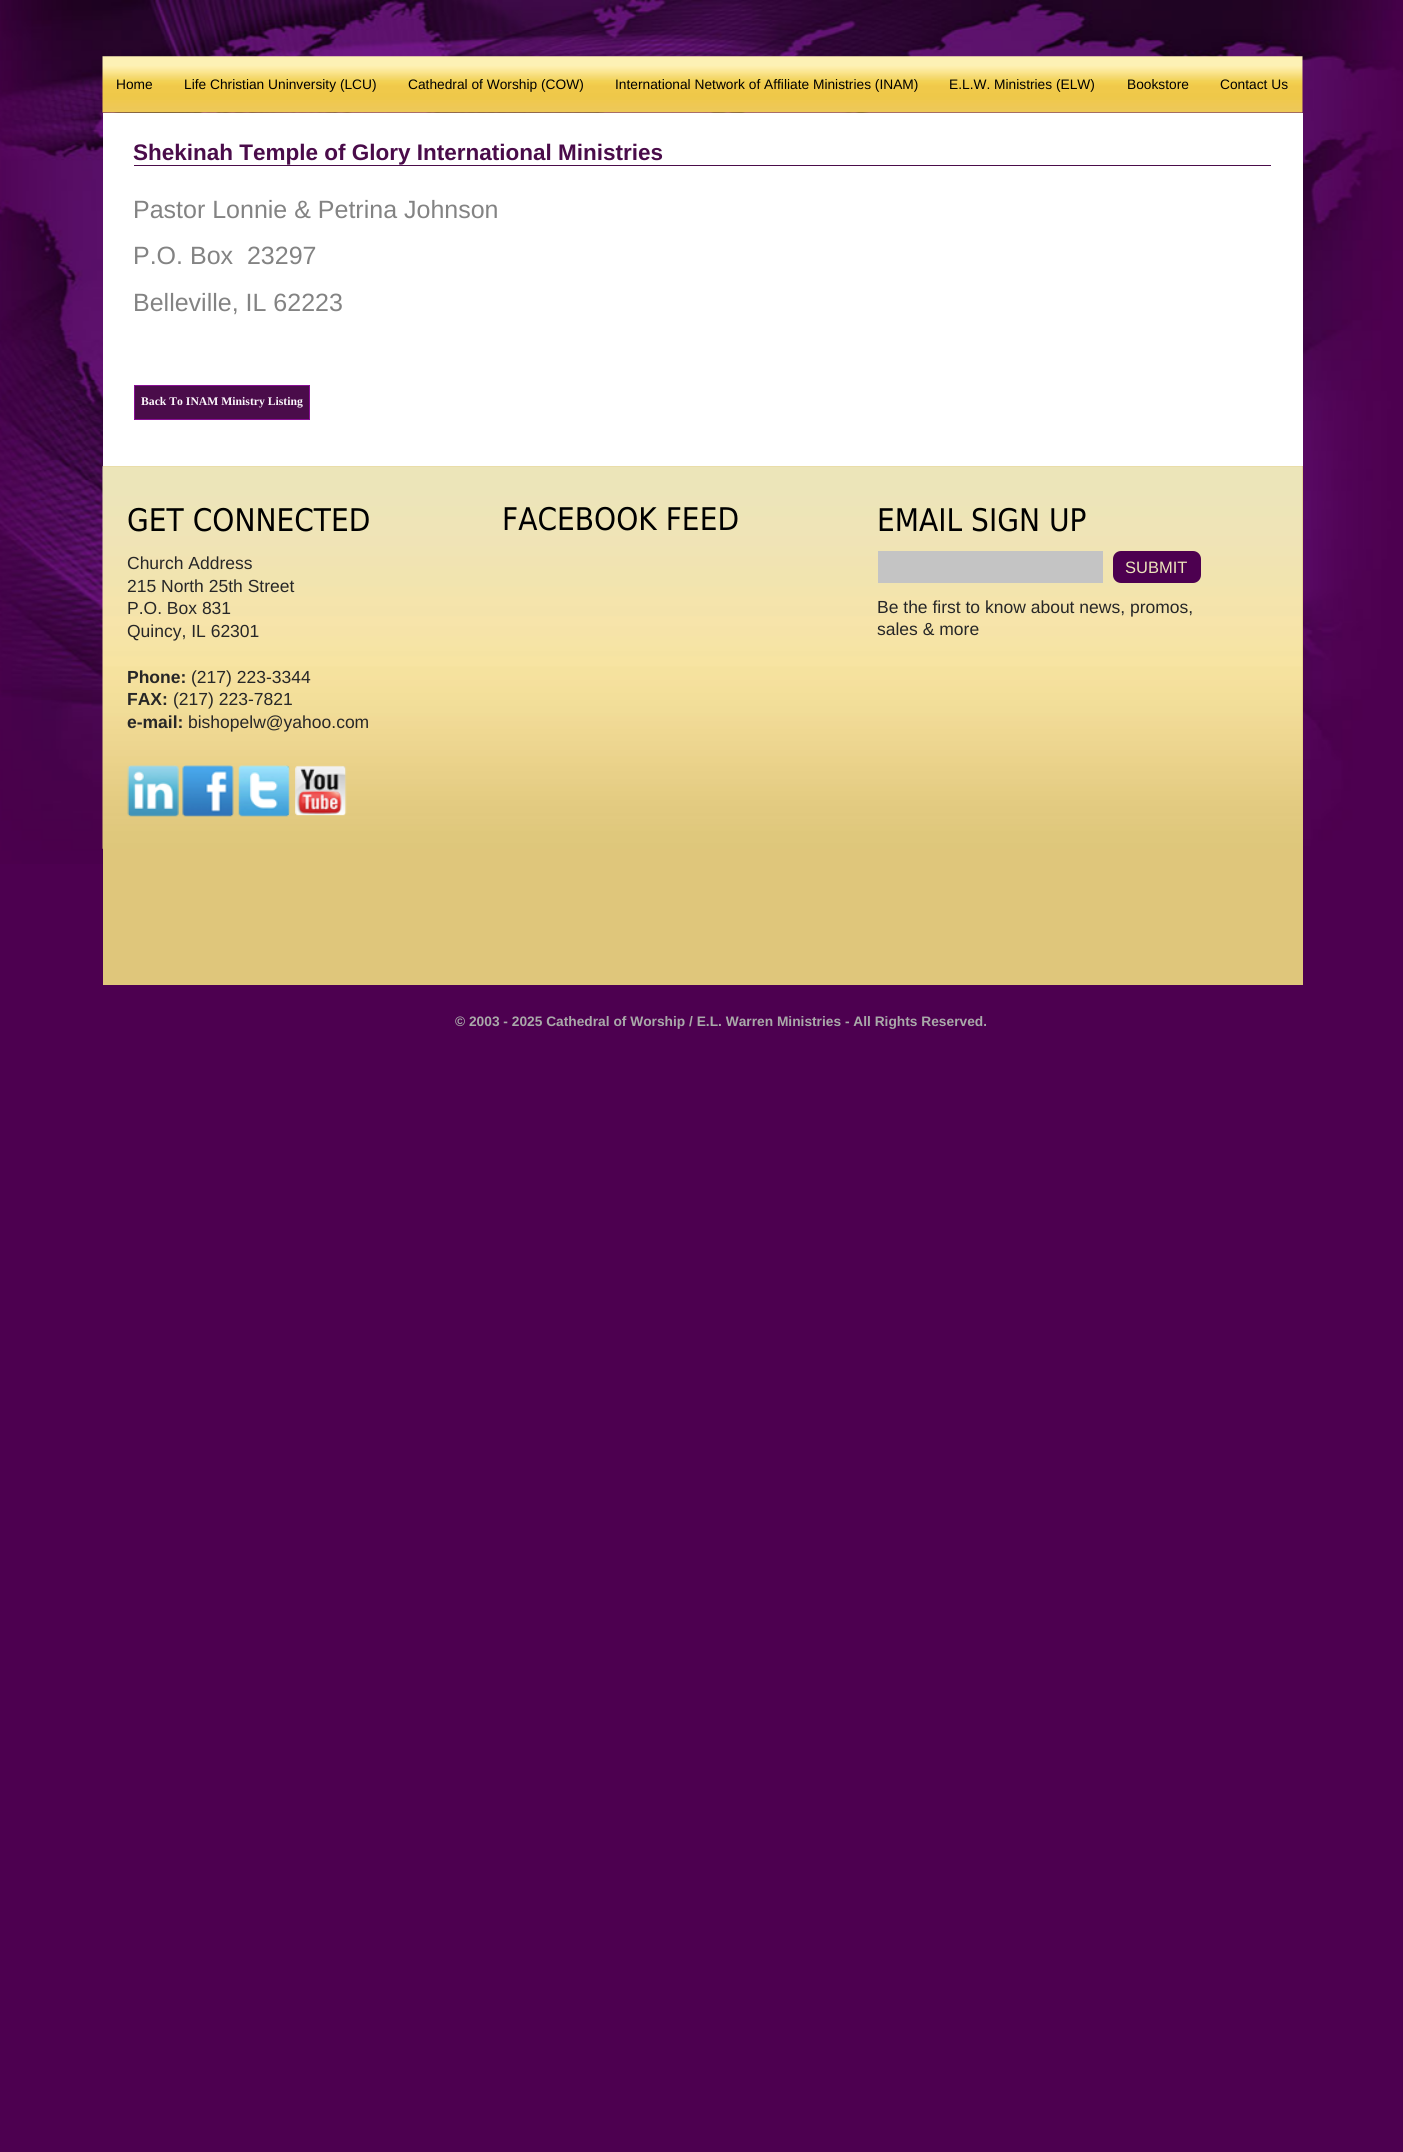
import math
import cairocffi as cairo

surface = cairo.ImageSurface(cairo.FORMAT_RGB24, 1403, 2152)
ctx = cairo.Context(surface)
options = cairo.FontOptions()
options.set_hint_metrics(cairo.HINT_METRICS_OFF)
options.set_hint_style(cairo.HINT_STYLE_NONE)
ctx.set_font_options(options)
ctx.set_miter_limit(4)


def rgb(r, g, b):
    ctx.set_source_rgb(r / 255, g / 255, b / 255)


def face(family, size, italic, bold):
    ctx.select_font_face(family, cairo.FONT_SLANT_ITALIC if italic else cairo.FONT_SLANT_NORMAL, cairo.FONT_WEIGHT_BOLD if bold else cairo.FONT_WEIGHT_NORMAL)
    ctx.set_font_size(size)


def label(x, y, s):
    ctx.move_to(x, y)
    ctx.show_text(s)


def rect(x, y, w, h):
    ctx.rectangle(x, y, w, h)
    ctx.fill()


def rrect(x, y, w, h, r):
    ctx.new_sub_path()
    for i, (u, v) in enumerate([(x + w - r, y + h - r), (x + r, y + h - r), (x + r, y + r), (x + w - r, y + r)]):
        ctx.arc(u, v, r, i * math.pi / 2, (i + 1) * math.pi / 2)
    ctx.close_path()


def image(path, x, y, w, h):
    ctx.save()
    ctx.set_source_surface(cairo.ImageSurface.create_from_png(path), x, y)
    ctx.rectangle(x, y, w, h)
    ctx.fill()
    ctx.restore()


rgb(77, 0, 80)
ctx.paint()
image('image0.png', 0, 0, 1403, 864)
image('image1.png', 102, 56, 1201, 57)
face('Liberation Sans', 13.75, 0, 0)
rgb(0, 0, 0)
label(116, 89, 'Home')
label(184, 89, 'Life Christian Uninversity (LCU)')
label(408, 89, 'Cathedral of Worship (COW)')
label(615, 89, 'International Network of Affiliate Ministries (INAM)')
label(949, 89, 'E.L.W. Ministries (ELW)')
label(1127, 89, 'Bookstore')
label(1220, 89, 'Contact Us')
rgb(255, 255, 255)
rect(103, 113, 1200, 353)
face('Liberation Sans', 22.5, 0, 1)
rgb(74, 12, 74)
label(133, 160, 'Shekinah Temple of Glory International Ministries')
rect(134, 165, 1137, 1)
face('Liberation Sans', 25, 0, 0)
rgb(131, 131, 131)
label(133, 218, 'Pastor Lonnie & Petrina Johnson')
label(133, 264, 'P.O. Box  23297')
label(133, 311, 'Belleville, IL 62223')
rgb(74, 12, 74)
ctx.rectangle(134.5, 385.5, 175, 34)
ctx.fill_preserve()
rgb(137, 15, 149)
ctx.set_line_width(1)
ctx.stroke()
face('Liberation Serif', 11.7, 0, 1)
rgb(251, 246, 251)
label(141, 405, 'Back To INAM Ministry Listing')
rgb(223, 198, 123)
rect(103, 466, 1200, 519)
image('image2.png', 102, 466, 1201, 383)
face('DejaVu Sans', 31.25, 0, 0)
rgb(0, 0, 0)
label(127, 531, 'GET CONNECTED')
face('Liberation Sans', 17.5, 0, 0)
rgb(39, 39, 39)
label(127, 569, 'Church Address')
label(127, 592, '215 North 25th Street')
label(127, 614, 'P.O. Box 831')
label(127, 637, 'Quincy, IL 62301')
face('Liberation Sans', 17.5, 0, 1)
label(127, 683, 'Phone:')
face('Liberation Sans', 17.5, 0, 0)
label(191, 683, '(217) 223-3344')
face('Liberation Sans', 17.5, 0, 1)
label(127, 705, 'FAX:')
face('Liberation Sans', 17.5, 0, 0)
label(173, 705, '(217) 223-7821')
face('Liberation Sans', 17.5, 0, 1)
label(127, 728, 'e-mail:')
face('Liberation Sans', 17.5, 0, 0)
label(188, 728, 'bishopelw@yahoo.com')
image('image3.png', 127, 765, 52, 52)
image('image4.png', 182, 765, 52, 52)
image('image5.png', 238, 765, 52, 52)
image('image6.png', 295, 765, 52, 51)
face('DejaVu Sans', 31.25, 0, 0)
rgb(0, 0, 0)
label(502, 530, 'FACEBOOK FEED')
label(877, 531, 'EMAIL SIGN UP')
rgb(196, 196, 196)
rect(878, 551, 225, 32)
rgb(77, 0, 80)
rrect(1113, 551, 88, 32, 8)
ctx.fill()
face('Liberation Sans', 16.5, 0, 0)
rgb(236, 228, 186)
label(1125, 573, 'SUBMIT')
face('Liberation Sans', 17.5, 0, 0)
rgb(39, 39, 39)
label(877, 613, 'Be the first to know about news, promos,')
label(877, 635, 'sales & more')
face('Liberation Sans', 13.75, 0, 1)
rgb(169, 169, 169)
label(455, 1026, '© 2003 - 2025 Cathedral of Worship / E.L. Warren Ministries - All Rights Reserved.')
surface.write_to_png('render.png')
